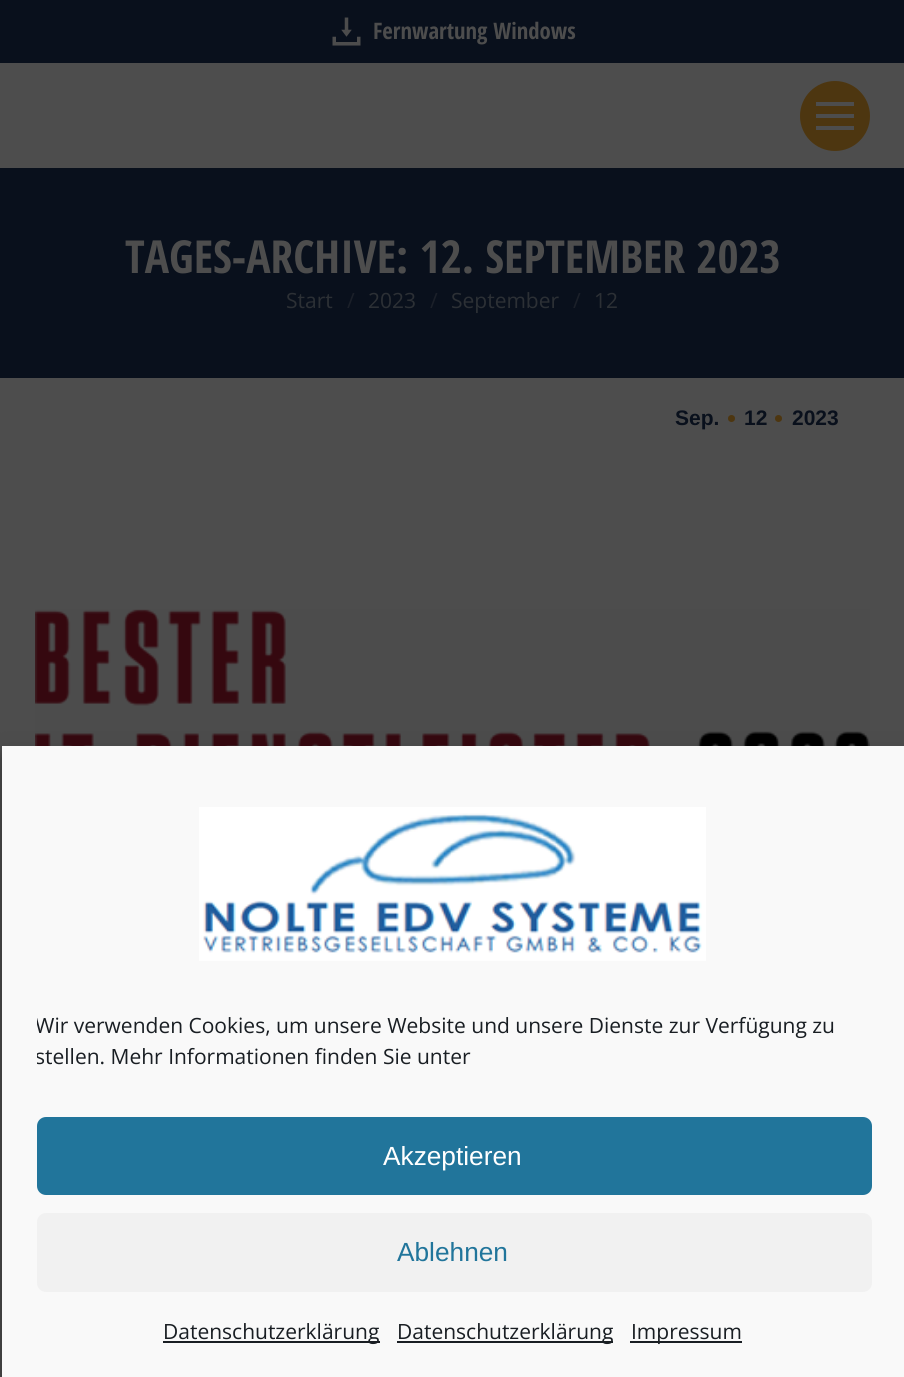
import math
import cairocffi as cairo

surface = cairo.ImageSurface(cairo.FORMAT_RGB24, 904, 1377)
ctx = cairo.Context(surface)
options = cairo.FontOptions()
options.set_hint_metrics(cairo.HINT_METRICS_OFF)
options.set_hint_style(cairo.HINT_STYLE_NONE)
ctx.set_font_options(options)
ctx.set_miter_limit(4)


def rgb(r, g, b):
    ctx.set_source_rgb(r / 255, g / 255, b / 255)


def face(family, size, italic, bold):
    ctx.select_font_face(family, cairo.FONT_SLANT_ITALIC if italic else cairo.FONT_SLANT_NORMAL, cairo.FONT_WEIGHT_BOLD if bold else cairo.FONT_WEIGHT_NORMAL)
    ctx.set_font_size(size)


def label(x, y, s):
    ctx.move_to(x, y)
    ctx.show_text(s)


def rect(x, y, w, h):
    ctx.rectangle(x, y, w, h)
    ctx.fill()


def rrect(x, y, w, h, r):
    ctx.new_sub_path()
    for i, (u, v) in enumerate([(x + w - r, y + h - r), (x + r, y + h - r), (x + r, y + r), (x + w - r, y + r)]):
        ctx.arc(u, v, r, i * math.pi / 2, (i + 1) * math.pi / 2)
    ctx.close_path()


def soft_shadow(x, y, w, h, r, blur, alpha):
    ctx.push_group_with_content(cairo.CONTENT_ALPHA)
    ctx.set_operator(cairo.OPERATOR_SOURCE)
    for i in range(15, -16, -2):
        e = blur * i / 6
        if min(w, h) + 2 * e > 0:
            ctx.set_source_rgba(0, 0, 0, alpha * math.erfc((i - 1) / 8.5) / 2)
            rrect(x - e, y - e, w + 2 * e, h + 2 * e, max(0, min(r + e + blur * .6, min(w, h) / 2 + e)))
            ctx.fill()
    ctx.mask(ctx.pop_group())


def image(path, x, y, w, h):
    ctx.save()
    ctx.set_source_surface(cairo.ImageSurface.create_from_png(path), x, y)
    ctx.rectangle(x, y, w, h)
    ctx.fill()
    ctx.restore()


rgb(77, 77, 77)
ctx.paint()
rgb(9, 16, 28)
rect(0, 0, 904, 63)
image('image0.png', 332, 17, 29, 29)
face('Open Sans Condensed', 22.75, 0, 1)
rgb(77, 77, 77)
label(373, 39, 'Fernwartung Windows')
rgb(77, 54, 16)
ctx.new_path()
ctx.arc(835, 116, 35, 0, 2 * math.pi)
ctx.fill()
rgb(77, 77, 77)
rect(816, 102, 38, 4)
rect(816, 114, 38, 4)
rect(816, 126, 38, 4)
rgb(9, 16, 28)
rect(0, 168, 904, 210)
face('Open Sans Condensed', 45.5, 0, 1)
rgb(77, 77, 77)
label(125, 273, 'TAGES-ARCHIVE: 12. SEPTEMBER 2023')
face('Open Sans', 21, 0, 0)
rgb(44, 48, 53)
label(286, 308, 'Start')
rgb(27, 32, 41)
label(347, 308, '/')
rgb(44, 48, 53)
label(368, 308, '2023')
rgb(27, 32, 41)
label(430, 308, '/')
rgb(44, 48, 53)
label(451, 308, 'September')
rgb(27, 32, 41)
label(573, 308, '/')
rgb(44, 48, 53)
label(594, 308, '12')
face('Liberation Sans', 21, 0, 1)
rgb(9, 16, 28)
label(675, 425, 'Sep.')
rgb(77, 54, 16)
ctx.new_path()
ctx.arc(731.5, 418.5, 3.5, 0, 2 * math.pi)
ctx.fill()
rgb(9, 16, 28)
label(744, 425, '12')
rgb(77, 54, 16)
ctx.new_path()
ctx.arc(778.5, 418.5, 3.5, 0, 2 * math.pi)
ctx.fill()
rgb(9, 16, 28)
label(792, 425, '2023')
image('image1.png', 35, 609, 835, 137)
rgb(0, 0, 0)
soft_shadow(2, 756, 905, 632, 0, 5, 0.23)
soft_shadow(2, 763, 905, 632, 0, 17.5, 0.19)
rgb(249, 249, 249)
rect(2, 746, 902, 631)
image('image2.png', 199, 807, 507, 154)
ctx.save()
ctx.rectangle(37, 807, 835, 275)
ctx.clip()
face('Open Sans', 21, 0, 0)
rgb(25, 30, 35)
label(35, 1033, 'Wir verwenden Cookies, um unsere Website und unsere Dienste zur Verfügung zu')
label(35, 1064, 'stellen. Mehr Informationen finden Sie unter')
ctx.restore()
rgb(33, 117, 155)
rrect(38, 1118, 833, 76, 8)
ctx.fill_preserve()
ctx.stroke()
face('Liberation Sans', 26.25, 0, 0)
rgb(255, 255, 255)
label(383, 1165, 'Akzeptieren')
rgb(241, 241, 241)
rrect(37, 1213, 835, 79, 9)
ctx.fill()
rgb(33, 117, 155)
label(397, 1261, 'Ablehnen')
rgb(25, 30, 35)
rect(163, 1341, 217, 2)
face('Open Sans', 21, 0, 0)
label(163, 1339, 'Datenschutzerklärung')
rect(397, 1341, 216, 2)
label(397, 1339, 'Datenschutzerklärung')
rect(630, 1341, 112, 2)
label(631, 1339, 'Impressum')
surface.write_to_png('render.png')
